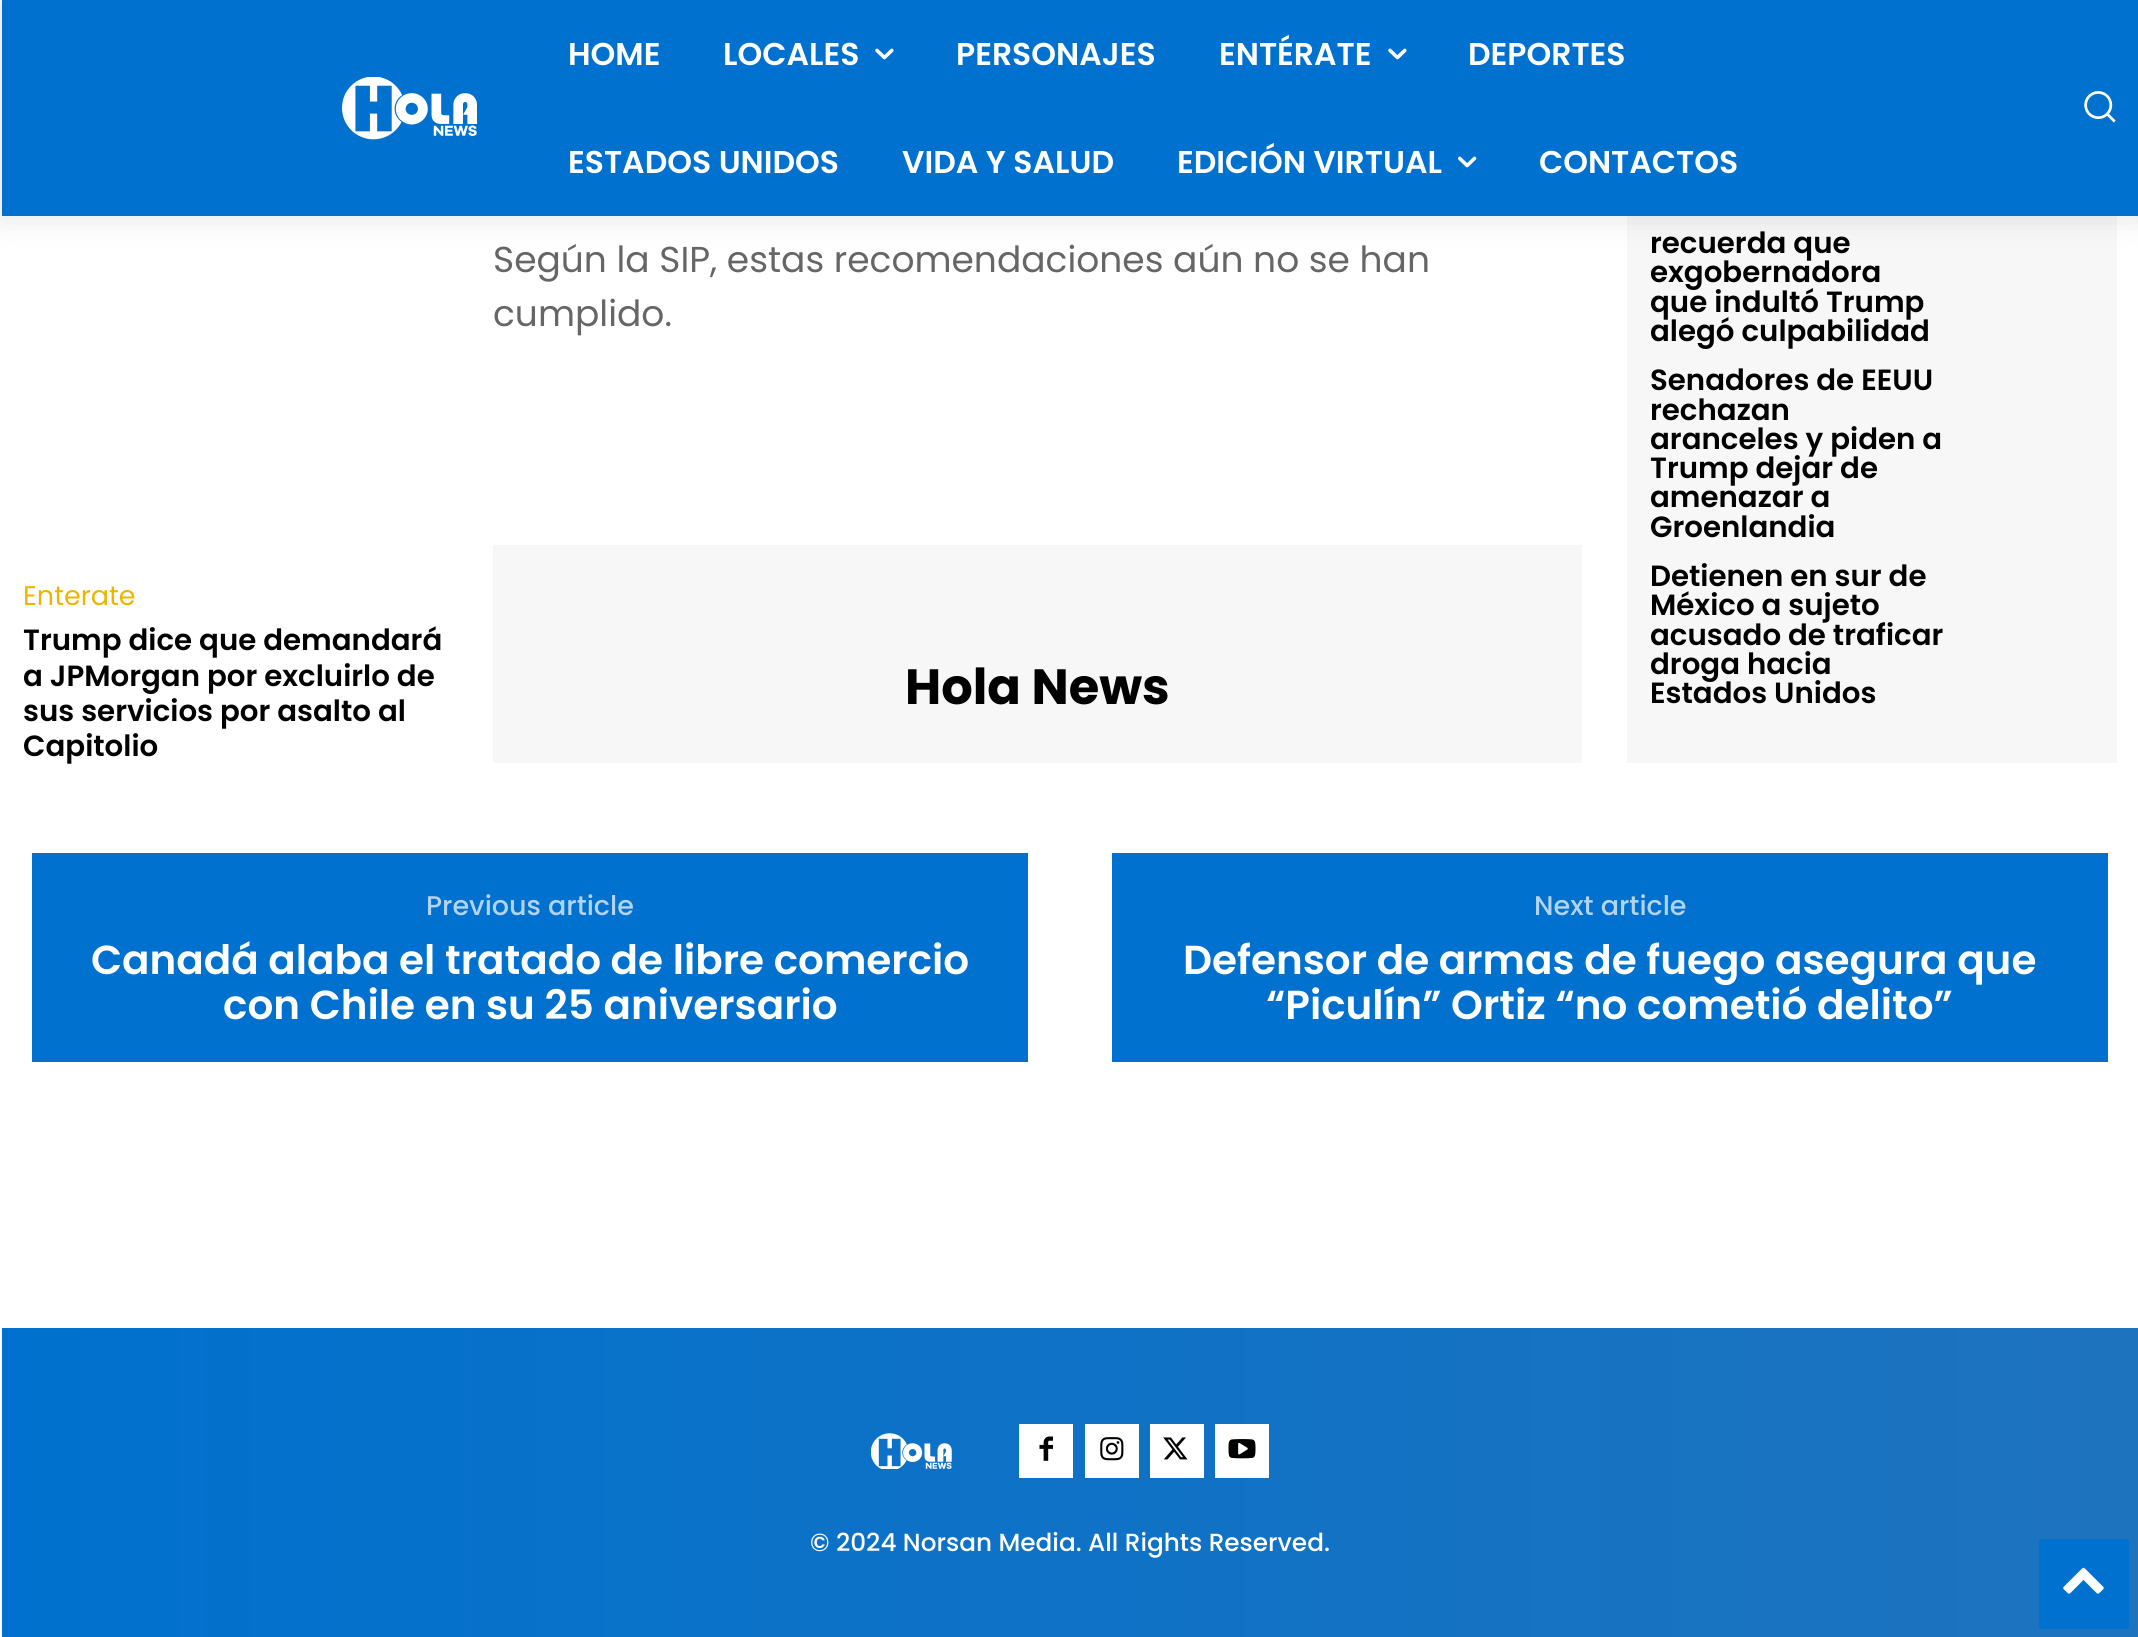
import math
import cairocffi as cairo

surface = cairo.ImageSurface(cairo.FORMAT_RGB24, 2138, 1637)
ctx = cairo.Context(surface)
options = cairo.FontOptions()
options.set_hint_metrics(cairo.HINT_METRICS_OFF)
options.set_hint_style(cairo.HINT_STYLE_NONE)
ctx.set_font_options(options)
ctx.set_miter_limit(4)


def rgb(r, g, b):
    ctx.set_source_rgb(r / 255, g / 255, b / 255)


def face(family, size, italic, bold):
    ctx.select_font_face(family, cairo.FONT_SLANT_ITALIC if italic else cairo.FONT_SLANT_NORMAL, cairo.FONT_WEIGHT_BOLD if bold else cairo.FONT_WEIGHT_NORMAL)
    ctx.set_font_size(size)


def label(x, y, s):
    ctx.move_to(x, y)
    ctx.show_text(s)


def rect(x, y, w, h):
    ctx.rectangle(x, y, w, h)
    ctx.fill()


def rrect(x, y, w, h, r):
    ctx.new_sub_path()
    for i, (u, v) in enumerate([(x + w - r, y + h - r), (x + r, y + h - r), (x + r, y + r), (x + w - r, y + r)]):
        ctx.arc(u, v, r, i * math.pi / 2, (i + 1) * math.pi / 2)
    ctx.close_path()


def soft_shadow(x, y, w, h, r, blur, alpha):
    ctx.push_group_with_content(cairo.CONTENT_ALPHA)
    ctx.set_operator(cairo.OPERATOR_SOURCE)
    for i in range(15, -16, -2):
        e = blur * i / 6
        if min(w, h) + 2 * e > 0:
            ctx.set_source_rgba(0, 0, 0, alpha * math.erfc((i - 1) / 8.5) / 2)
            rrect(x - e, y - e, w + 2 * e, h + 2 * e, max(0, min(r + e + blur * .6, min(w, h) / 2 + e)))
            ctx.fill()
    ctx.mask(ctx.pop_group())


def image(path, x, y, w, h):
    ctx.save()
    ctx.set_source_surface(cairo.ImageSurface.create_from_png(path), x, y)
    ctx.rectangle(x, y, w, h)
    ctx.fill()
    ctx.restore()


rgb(255, 255, 255)
ctx.paint()
rgb(0, 113, 206)
rect(2, 0, 2136, 216)
image('image0.png', 342, 77, 135, 63)
rgb(247, 247, 247)
rect(1627, 216, 490, 547)
ctx.save()
ctx.set_fill_rule(cairo.FILL_RULE_EVEN_ODD)
ctx.new_path()
ctx.move_to(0, 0)
ctx.line_to(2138, 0)
ctx.line_to(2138, 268)
ctx.line_to(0, 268)
ctx.close_path()
ctx.move_to(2, 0)
ctx.line_to(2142, 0)
ctx.line_to(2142, 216)
ctx.line_to(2, 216)
ctx.close_path()
ctx.clip()
rgb(0, 0, 0)
soft_shadow(2, 0, 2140, 216, 0, 17, 0.12)
ctx.restore()
face('Poppins SemiBold', 31.5, 0, 0)
rgb(255, 255, 255)
label(568, 65, 'HOME')
label(723, 65, 'LOCALES')
image('image1.png', 875, 48, 19, 12)
label(956, 65, 'PERSONAJES')
label(1219, 65, 'ENTÉRATE')
image('image1.png', 1388, 48, 19, 12)
label(1468, 65, 'DEPORTES')
label(568, 173, 'ESTADOS UNIDOS')
label(902, 173, 'VIDA Y SALUD')
label(1177, 173, 'EDICIÓN VIRTUAL')
image('image2.png', 1458, 156, 19, 12)
label(1539, 173, 'CONTACTOS')
image('image3.png', 2084, 91, 32, 32)
face('Poppins', 27, 0, 0)
rgb(237, 181, 0)
label(23, 605, 'Enterate')
face('Poppins SemiBold', 29.25, 0, 0)
rgb(0, 0, 0)
label(23, 650, 'Trump dice que demandará')
label(23, 686, 'a JPMorgan por excluirlo de')
label(23, 721, 'sus servicios por asalto al')
label(23, 756, 'Capitolio')
face('Poppins', 36, 0, 0)
rgb(102, 102, 102)
label(493, 272, 'Según la SIP, estas recomendaciones aún no se han')
label(493, 326, 'cumplido.')
rgb(247, 247, 247)
rect(493, 545, 1089, 218)
face('Poppins', 49.5, 0, 1)
rgb(0, 0, 0)
label(905, 704, 'Hola News')
face('Poppins SemiBold', 29.25, 0, 0)
label(1650, 253, 'recuerda que')
label(1650, 282, 'exgobernadora')
label(1650, 312, 'que indultó Trump')
label(1650, 341, 'alegó culpabilidad')
label(1650, 390, 'Senadores de EEUU')
label(1650, 420, 'rechazan')
label(1650, 449, 'aranceles y piden a')
label(1650, 478, 'Trump dejar de')
label(1650, 507, 'amenazar a')
label(1650, 537, 'Groenlandia')
label(1650, 586, 'Detienen en sur de')
label(1650, 615, 'México a sujeto')
label(1650, 645, 'acusado de traficar')
label(1650, 674, 'droga hacia')
label(1650, 703, 'Estados Unidos')
rgb(0, 113, 206)
rect(32, 853, 996, 209)
face('Poppins Medium', 27, 0, 0)
rgb(179, 212, 240)
label(426, 915, 'Previous article')
face('Poppins SemiBold', 40.5, 0, 0)
rgb(255, 255, 255)
label(91, 974, 'Canadá alaba el tratado de libre comercio')
label(223, 1019, 'con Chile en su 25 aniversario')
rgb(0, 113, 206)
rect(1112, 853, 996, 209)
face('Poppins Medium', 27, 0, 0)
rgb(179, 212, 240)
label(1534, 915, 'Next article')
face('Poppins SemiBold', 40.5, 0, 0)
rgb(255, 255, 255)
label(1183, 974, 'Defensor de armas de fuego asegura que')
label(1266, 1019, '“Piculín” Ortiz “no cometió delito”')
gradient = cairo.LinearGradient(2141, 1483, 1.1, 1483)
gradient.add_color_stop_rgba(0, 0.118, 0.451, 0.745, 1)
gradient.add_color_stop_rgba(1, 0, 0.443, 0.808, 1)
ctx.set_source(gradient)
rect(2, 1328, 2136, 309)
image('image4.png', 871, 1433, 81, 36)
rgb(255, 255, 255)
rect(1019, 1424, 54, 54)
image('image5.png', 1039, 1436, 14, 25)
rect(1085, 1424, 54, 54)
image('image6.png', 1100, 1437, 24, 24)
rect(1150, 1424, 54, 54)
image('image7.png', 1163, 1437, 25, 23)
rect(1215, 1424, 54, 54)
image('image8.png', 1228, 1439, 28, 20)
face('Poppins Medium', 24.75, 0, 0)
label(810, 1551, '© 2024 Norsan Media. All Rights Reserved.')
rgb(0, 113, 206)
rect(2039, 1539, 90, 90)
image('image9.png', 2063, 1567, 41, 27)
surface.write_to_png('render.png')
